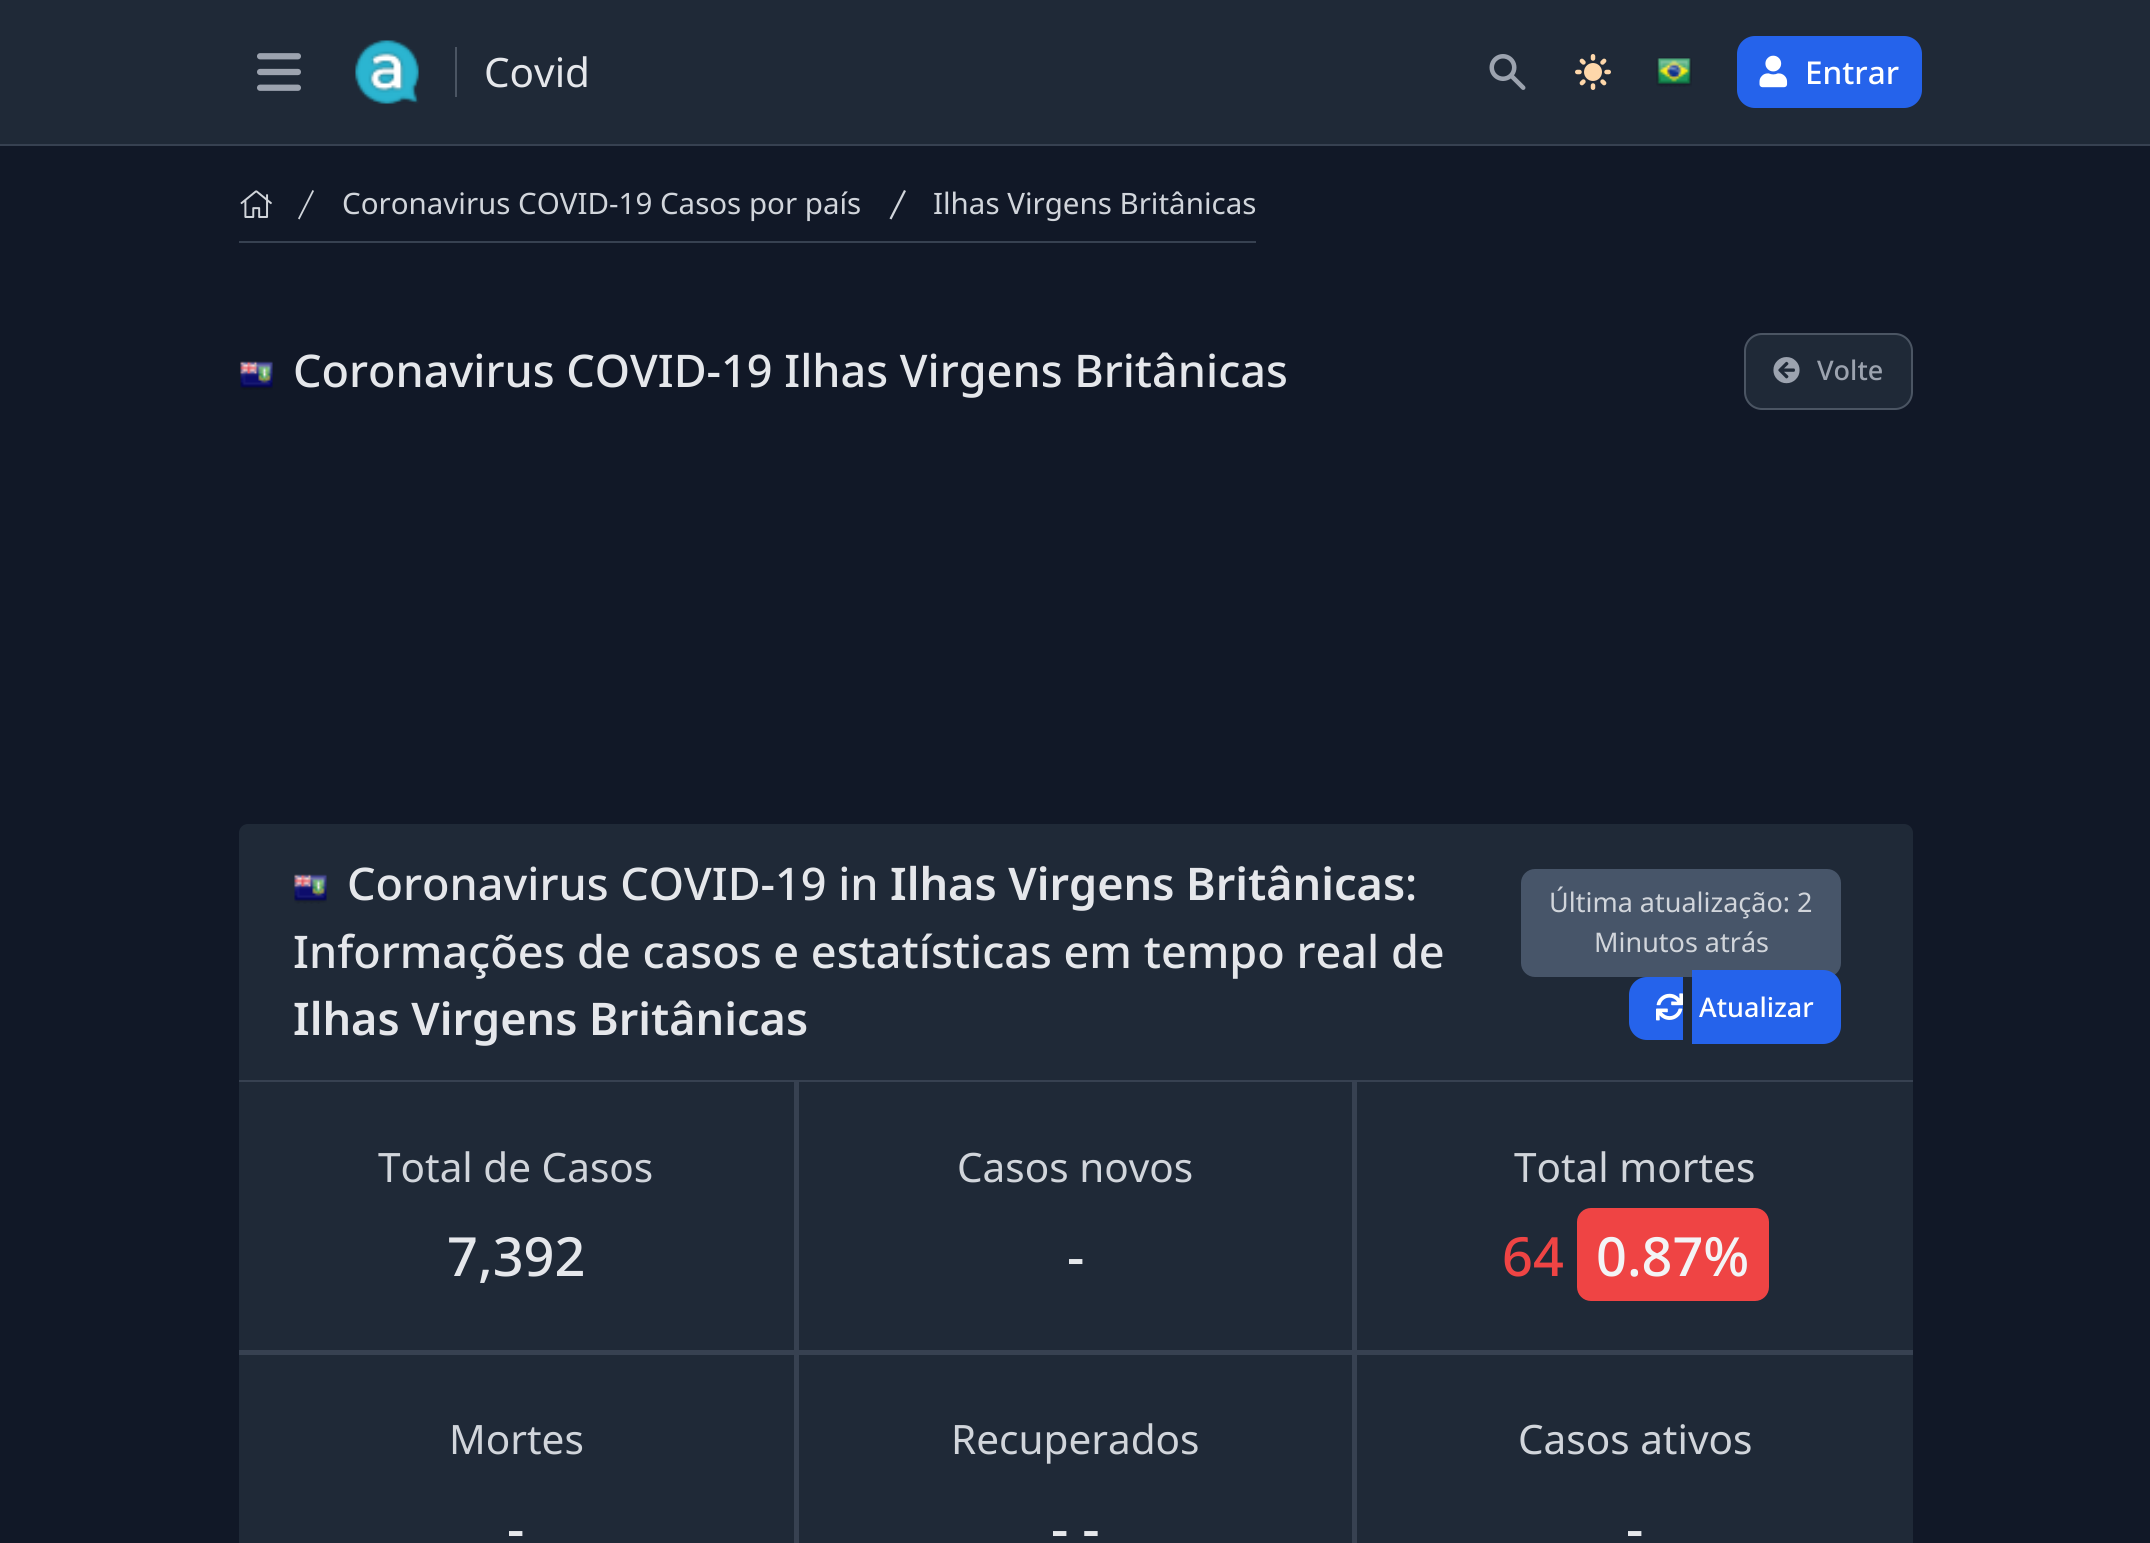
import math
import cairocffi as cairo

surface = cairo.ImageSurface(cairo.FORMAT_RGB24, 2150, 1543)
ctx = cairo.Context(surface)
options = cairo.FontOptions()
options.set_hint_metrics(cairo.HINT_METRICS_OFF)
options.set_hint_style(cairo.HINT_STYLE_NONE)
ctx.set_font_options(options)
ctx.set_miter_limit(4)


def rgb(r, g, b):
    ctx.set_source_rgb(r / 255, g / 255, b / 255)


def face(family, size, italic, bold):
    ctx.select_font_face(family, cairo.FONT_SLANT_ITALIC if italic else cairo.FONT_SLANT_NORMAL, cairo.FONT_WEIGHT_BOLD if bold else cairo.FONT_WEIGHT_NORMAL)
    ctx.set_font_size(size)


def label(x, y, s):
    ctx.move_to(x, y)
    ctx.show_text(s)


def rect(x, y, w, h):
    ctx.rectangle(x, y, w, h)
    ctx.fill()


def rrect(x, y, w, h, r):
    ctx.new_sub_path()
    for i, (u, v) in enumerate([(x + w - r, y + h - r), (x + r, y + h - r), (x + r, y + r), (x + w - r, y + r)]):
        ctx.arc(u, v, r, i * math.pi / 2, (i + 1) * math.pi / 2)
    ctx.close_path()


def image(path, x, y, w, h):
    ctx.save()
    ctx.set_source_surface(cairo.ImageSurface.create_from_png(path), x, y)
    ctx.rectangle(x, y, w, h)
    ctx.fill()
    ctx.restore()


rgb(17, 24, 39)
ctx.paint()
rgb(31, 41, 55)
rect(0, 0, 2150, 144)
rgb(55, 65, 81)
rect(0, 144, 2150, 2)
image('image0.png', 257, 53, 44, 38)
image('image1.png', 355, 40, 64, 64)
rgb(75, 85, 99)
rect(455, 47, 2, 50)
face('Noto Sans', 40.5, 0, 0)
rgb(229, 231, 235)
label(484, 87, 'Covid')
image('image2.png', 1489, 54, 37, 36)
image('image3.png', 1575, 54, 36, 36)
image('image4.png', 1656, 57, 36, 30)
rgb(37, 99, 235)
rrect(1737, 36, 185, 72, 18)
ctx.fill()
image('image5.png', 1759, 55, 29, 33)
face('Noto Sans Medium', 31.5, 0, 0)
rgb(255, 255, 255)
label(1805, 84, 'Entrar')
rgb(55, 65, 81)
rect(239, 241, 1017, 2)
image('image6.png', 240, 190, 32, 28)
rgb(209, 213, 219)
ctx.new_path()
ctx.move_to(298, 218.5)
ctx.line_to(312.5, 190)
ctx.line_to(314, 191)
ctx.line_to(299.5, 219.5)
ctx.close_path()
ctx.fill()
face('Noto Sans', 29.5, 0, 0)
label(342, 214, 'Coronavirus COVID-19 Casos por país')
ctx.new_path()
ctx.move_to(889.5, 218.5)
ctx.line_to(904, 190)
ctx.line_to(906, 191)
ctx.line_to(891.5, 219.5)
ctx.close_path()
ctx.fill()
label(933, 214, 'Ilhas Virgens Britânicas')
image('image7.png', 240, 361, 33, 29)
face('Noto Sans Medium', 45, 0, 0)
rgb(229, 231, 235)
label(293, 387, 'Coronavirus COVID-19 Ilhas Virgens Britânicas')
rgb(31, 41, 55)
rrect(1745, 334, 167, 75, 17)
ctx.fill_preserve()
rgb(75, 85, 99)
ctx.stroke()
image('image8.png', 1773, 357, 27, 27)
face('Noto Sans Medium', 27, 0, 0)
rgb(156, 163, 175)
label(1817, 380, 'Volte')
rgb(31, 41, 55)
ctx.new_path()
ctx.move_to(248, 824)
ctx.line_to(1904, 824)
ctx.curve_to(1909, 824, 1913, 828, 1913, 833)
ctx.line_to(1913, 1080)
ctx.line_to(239, 1080)
ctx.line_to(239, 833)
ctx.curve_to(239, 828, 243, 824, 248, 824)
ctx.close_path()
ctx.fill()
image('image9.png', 294, 874, 33, 30)
face('Noto Sans Medium', 45, 0, 0)
rgb(229, 231, 235)
label(347, 900, 'Coronavirus COVID-19 in')
face('Noto Sans SemiBold', 45, 0, 0)
label(890, 900, 'Ilhas Virgens Britânicas')
face('Noto Sans Medium', 45, 0, 0)
label(1405, 900, ':')
label(293, 968, 'Informações de casos e estatísticas em tempo real de')
face('Noto Sans SemiBold', 45, 0, 0)
label(293, 1035, 'Ilhas Virgens Britânicas')
rgb(71, 85, 105)
rrect(1521, 869, 320, 108, 14)
ctx.fill()
face('Noto Sans', 27, 0, 0)
rgb(209, 213, 219)
label(1549, 912, 'Última atualização: 2')
label(1594, 952, 'Minutos atrás')
rgb(37, 99, 235)
ctx.new_path()
ctx.move_to(1647, 977)
ctx.line_to(1683, 977)
ctx.line_to(1683, 1040)
ctx.line_to(1647, 1040)
ctx.curve_to(1637, 1040, 1629, 1032, 1629, 1022)
ctx.line_to(1629, 995)
ctx.curve_to(1629, 985, 1637, 977, 1647, 977)
ctx.close_path()
ctx.fill()
ctx.new_path()
ctx.move_to(1692, 970)
ctx.line_to(1823, 970)
ctx.curve_to(1833, 970, 1841, 978, 1841, 988)
ctx.line_to(1841, 1026)
ctx.curve_to(1841, 1036, 1833, 1044, 1823, 1044)
ctx.line_to(1692, 1044)
ctx.close_path()
ctx.fill()
image('image10.png', 1656, 993, 27, 28)
face('Noto Sans Medium', 27, 0, 0)
rgb(255, 255, 255)
label(1699, 1017, 'Atualizar')
rgb(55, 65, 81)
rect(239, 1080, 1674, 463)
rgb(31, 41, 55)
rect(239, 1082, 555, 268)
face('Noto Sans', 40.5, 0, 0)
rgb(209, 213, 219)
label(378, 1182, 'Total de Casos')
face('Noto Sans Medium', 54, 0, 0)
rgb(229, 231, 235)
label(447, 1276, '7,392')
rgb(31, 41, 55)
rect(799, 1082, 553, 268)
face('Noto Sans', 40.5, 0, 0)
rgb(209, 213, 219)
label(957, 1182, 'Casos novos')
face('Noto Sans Medium', 54, 0, 0)
rgb(229, 231, 235)
label(1067, 1276, '-')
rgb(31, 41, 55)
rect(1357, 1082, 556, 268)
face('Noto Sans', 40.5, 0, 0)
rgb(209, 213, 219)
label(1514, 1182, 'Total mortes')
face('Noto Sans Medium', 54, 0, 0)
rgb(239, 68, 68)
label(1502, 1276, '64')
rrect(1577, 1208, 192, 93, 14)
ctx.fill()
rgb(243, 244, 246)
label(1596, 1276, '0.87%')
rgb(31, 41, 55)
rect(239, 1355, 555, 188)
face('Noto Sans', 40.5, 0, 0)
rgb(209, 213, 219)
label(449, 1454, 'Mortes')
face('Noto Sans Medium', 54, 0, 0)
rgb(229, 231, 235)
label(507, 1548, '-')
rgb(31, 41, 55)
rect(799, 1355, 553, 188)
face('Noto Sans', 40.5, 0, 0)
rgb(209, 213, 219)
label(951, 1454, 'Recuperados')
face('Noto Sans Medium', 54, 0, 0)
rgb(229, 231, 235)
label(1051, 1548, '- -')
rgb(31, 41, 55)
rect(1357, 1355, 556, 188)
face('Noto Sans', 40.5, 0, 0)
rgb(209, 213, 219)
label(1518, 1454, 'Casos ativos')
face('Noto Sans Medium', 54, 0, 0)
rgb(229, 231, 235)
label(1626, 1548, '-')
surface.write_to_png('render.png')
